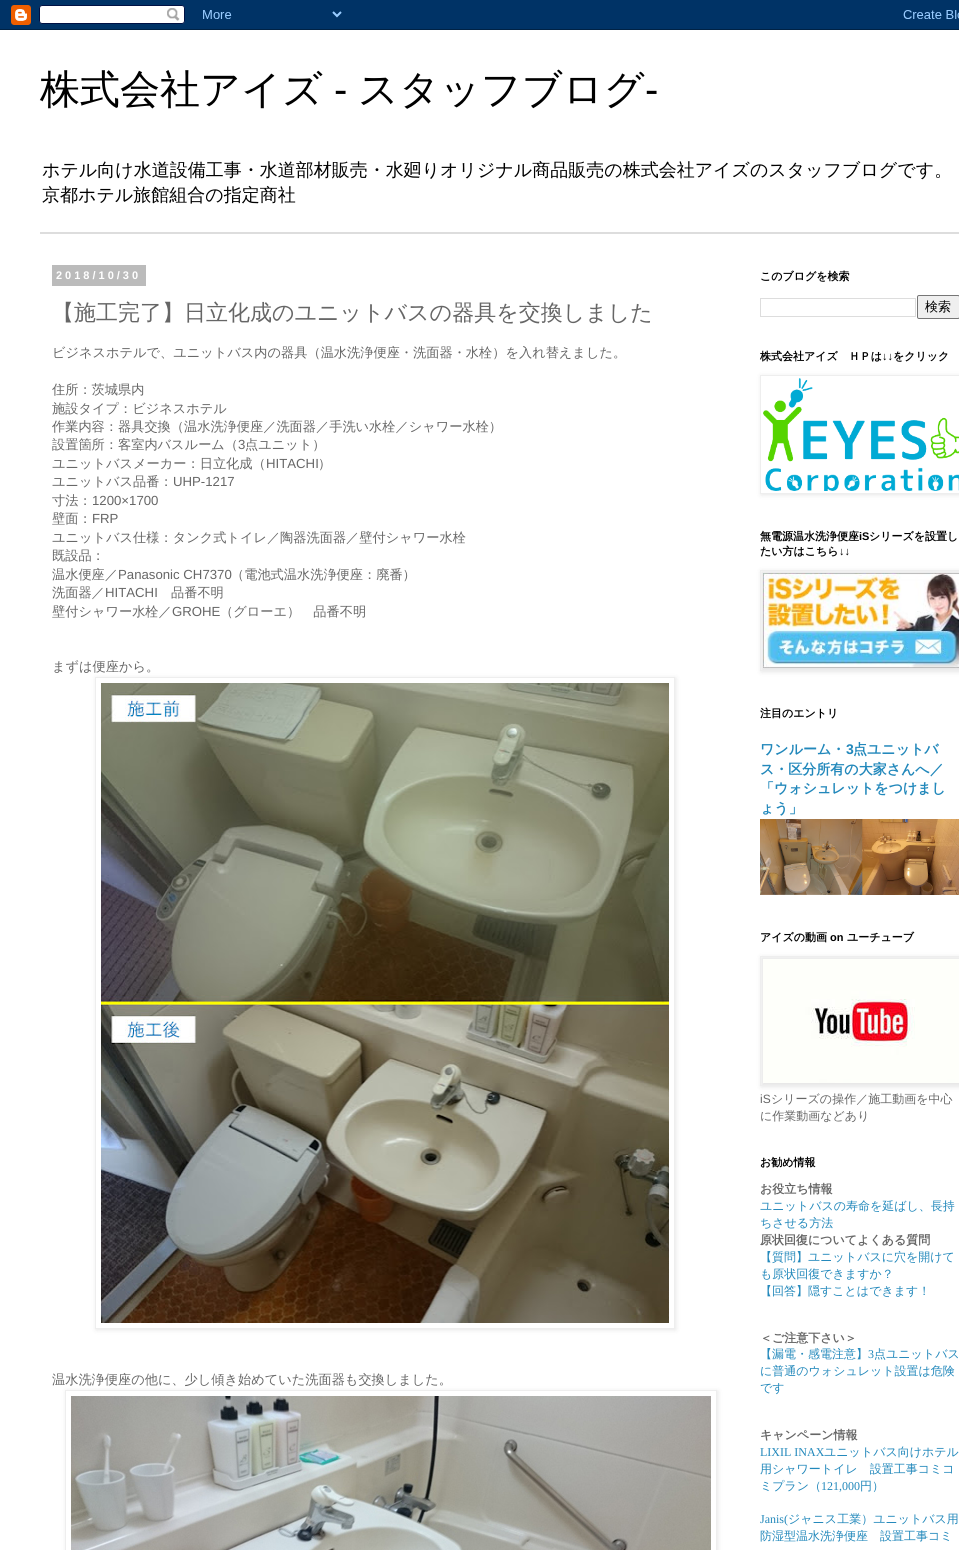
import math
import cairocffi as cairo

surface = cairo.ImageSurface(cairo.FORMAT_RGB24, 959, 1550)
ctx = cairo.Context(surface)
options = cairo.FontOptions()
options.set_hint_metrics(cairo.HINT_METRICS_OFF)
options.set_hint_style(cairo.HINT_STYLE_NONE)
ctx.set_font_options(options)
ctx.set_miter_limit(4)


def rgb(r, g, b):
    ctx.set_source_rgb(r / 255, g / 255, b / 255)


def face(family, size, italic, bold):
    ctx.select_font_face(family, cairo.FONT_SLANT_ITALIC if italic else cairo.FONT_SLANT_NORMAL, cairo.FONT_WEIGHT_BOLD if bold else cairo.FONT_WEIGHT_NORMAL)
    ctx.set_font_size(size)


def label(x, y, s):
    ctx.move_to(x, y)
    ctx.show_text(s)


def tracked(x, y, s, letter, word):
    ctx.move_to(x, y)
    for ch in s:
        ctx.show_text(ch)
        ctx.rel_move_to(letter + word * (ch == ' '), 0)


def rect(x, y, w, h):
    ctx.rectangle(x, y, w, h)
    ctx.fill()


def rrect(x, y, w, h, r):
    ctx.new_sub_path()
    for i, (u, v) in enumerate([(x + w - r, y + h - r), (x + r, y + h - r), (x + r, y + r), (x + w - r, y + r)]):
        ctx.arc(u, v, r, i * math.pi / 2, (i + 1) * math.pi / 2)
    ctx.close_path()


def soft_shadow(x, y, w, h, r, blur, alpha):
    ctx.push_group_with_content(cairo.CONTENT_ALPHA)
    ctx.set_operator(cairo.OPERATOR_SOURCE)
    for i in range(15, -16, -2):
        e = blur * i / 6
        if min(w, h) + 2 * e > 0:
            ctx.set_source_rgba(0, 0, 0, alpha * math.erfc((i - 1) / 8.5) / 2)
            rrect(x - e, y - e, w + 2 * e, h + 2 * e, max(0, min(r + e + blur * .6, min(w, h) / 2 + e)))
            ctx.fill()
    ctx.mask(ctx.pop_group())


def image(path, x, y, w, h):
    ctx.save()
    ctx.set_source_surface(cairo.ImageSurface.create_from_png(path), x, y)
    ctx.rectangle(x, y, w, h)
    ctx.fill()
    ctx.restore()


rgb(255, 255, 255)
ctx.paint()
image('image0.png', 0, 0, 959, 30)
face('WenQuanYi Zen Hei Medium', 40, 0, 0)
rgb(0, 0, 0)
label(40, 103, '株式会社アイズ')
face('Liberation Sans', 40, 0, 0)
label(334, 103, '-')
face('WenQuanYi Zen Hei Medium', 40, 0, 0)
label(358, 103, 'スタッフブログ')
face('Liberation Sans', 40, 0, 0)
label(645, 103, '-')
face('WenQuanYi Zen Hei Medium', 18, 0, 0)
label(42, 176, 'ホテル向け水道設備工事・水道部材販売・水廻りオリジナル商品販売の株式会社アイズのスタッフブログです。')
label(42, 201, '京都ホテル旅館組合の指定商社')
rgb(221, 221, 221)
rect(40, 232, 919, 2)
rgb(187, 187, 187)
rect(52, 265, 94, 21)
face('Liberation Sans', 11, 0, 1)
rgb(255, 255, 255)
tracked(56, 279, '2018/10/30', 3, 0)
face('WenQuanYi Zen Hei Medium', 22, 0, 0)
rgb(102, 102, 102)
label(52, 320, '【施工完了】日立化成のユニットバスの器具を交換しました')
face('WenQuanYi Zen Hei Medium', 13.2, 0, 0)
label(52, 357, 'ビジネスホテルで、ユニットバス内の器具（温水洗浄便座・洗面器・水栓）を入れ替えました。')
label(52, 394, '住所：茨城県内')
label(52, 413, '施設タイプ：ビジネスホテル')
label(52, 431, '作業内容：器具交換（温水洗浄便座／洗面器／手洗い水栓／シャワー水栓）')
label(52, 449, '設置箇所：客室内バスルーム（')
face('Liberation Sans', 13.2, 0, 0)
label(238, 449, '3')
face('WenQuanYi Zen Hei Medium', 13.2, 0, 0)
label(245, 449, '点ユニット）')
label(52, 468, 'ユニットバスメーカー：日立化成（')
face('Liberation Sans', 13.2, 0, 0)
label(266, 468, 'HITACHI')
face('WenQuanYi Zen Hei Medium', 13.2, 0, 0)
label(318, 468, '）')
label(52, 486, 'ユニットバス品番：')
face('Liberation Sans', 13.2, 0, 0)
label(173, 486, 'UHP-1217')
face('WenQuanYi Zen Hei Medium', 13.2, 0, 0)
label(52, 505, '寸法：')
face('Liberation Sans', 13.2, 0, 0)
label(92, 505, '1200×1700')
face('WenQuanYi Zen Hei Medium', 13.2, 0, 0)
label(52, 523, '壁面：')
face('Liberation Sans', 13.2, 0, 0)
label(92, 523, 'FRP')
face('WenQuanYi Zen Hei Medium', 13.2, 0, 0)
label(52, 542, 'ユニットバス仕様：タンク式トイレ／陶器洗面器／壁付シャワー水栓')
label(52, 560, '既設品：')
label(52, 579, '温水便座／')
face('Liberation Sans', 13.2, 0, 0)
label(118, 579, 'Panasonic CH7370')
face('WenQuanYi Zen Hei Medium', 13.2, 0, 0)
label(231, 579, '（電池式温水洗浄便座：廃番）')
label(52, 597, '洗面器／')
face('Liberation Sans', 13.2, 0, 0)
label(105, 597, 'HITACHI')
face('WenQuanYi Zen Hei Medium', 13.2, 0, 0)
label(171, 597, '品番不明')
label(52, 616, '壁付シャワー水栓／')
face('Liberation Sans', 13.2, 0, 0)
label(172, 616, 'GROHE')
face('WenQuanYi Zen Hei Medium', 13.2, 0, 0)
label(220, 616, '（グローエ）　品番不明')
label(52, 671, 'まずは便座から。')
ctx.save()
ctx.set_fill_rule(cairo.FILL_RULE_EVEN_ODD)
ctx.new_path()
ctx.move_to(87, 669)
ctx.line_to(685, 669)
ctx.line_to(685, 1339)
ctx.line_to(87, 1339)
ctx.close_path()
ctx.move_to(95, 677)
ctx.line_to(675, 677)
ctx.line_to(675, 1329)
ctx.line_to(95, 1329)
ctx.close_path()
ctx.clip()
rgb(0, 0, 0)
soft_shadow(96, 678, 580, 652, 0, 2.5, 0.1)
ctx.restore()
ctx.rectangle(95.5, 677.5, 579, 651)
rgb(238, 238, 238)
ctx.set_line_width(1)
ctx.stroke()
image('image1.png', 101, 683, 568, 640)
rgb(102, 102, 102)
label(52, 1384, '温水洗浄便座の他に、少し傾き始めていた洗面器も交換しました。')
ctx.save()
ctx.set_fill_rule(cairo.FILL_RULE_EVEN_ODD)
ctx.new_path()
ctx.move_to(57, 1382)
ctx.line_to(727, 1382)
ctx.line_to(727, 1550)
ctx.line_to(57, 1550)
ctx.close_path()
ctx.move_to(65, 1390)
ctx.line_to(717, 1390)
ctx.line_to(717, 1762)
ctx.line_to(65, 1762)
ctx.close_path()
ctx.clip()
rgb(0, 0, 0)
soft_shadow(66, 1391, 652, 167, 0, 2.5, 0.1)
ctx.restore()
ctx.rectangle(65.5, 1390.5, 651, 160)
rgb(238, 238, 238)
ctx.stroke()
image('image2.png', 71, 1396, 640, 154)
face('WenQuanYi Zen Hei', 11, 0, 1)
rgb(0, 0, 0)
label(760, 280, 'このブログを検索')
ctx.rectangle(760.5, 298.5, 155, 18)
rgb(221, 221, 221)
ctx.stroke()
rgb(239, 239, 239)
rrect(917.5, 295.5, 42, 23, 1.5)
ctx.fill_preserve()
rgb(118, 118, 118)
ctx.stroke()
face('WenQuanYi Zen Hei Medium', 13, 0, 0)
rgb(0, 0, 0)
label(925, 311, '検索')
face('WenQuanYi Zen Hei', 11, 0, 1)
label(760, 360, '株式会社アイズ　ＨＰは')
face('Liberation Sans', 11, 0, 1)
label(882, 360, '↓↓')
face('WenQuanYi Zen Hei', 11, 0, 1)
label(893, 360, 'をクリック')
ctx.save()
ctx.set_fill_rule(cairo.FILL_RULE_EVEN_ODD)
ctx.new_path()
ctx.move_to(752, 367)
ctx.line_to(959, 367)
ctx.line_to(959, 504)
ctx.line_to(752, 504)
ctx.close_path()
ctx.move_to(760, 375)
ctx.line_to(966, 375)
ctx.line_to(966, 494)
ctx.line_to(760, 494)
ctx.close_path()
ctx.clip()
rgb(0, 0, 0)
soft_shadow(761, 376, 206, 119, 0, 2.5, 0.1)
ctx.restore()
ctx.rectangle(760.5, 375.5, 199, 118)
rgb(238, 238, 238)
ctx.stroke()
image('image3.png', 763, 378, 196, 113)
rgb(0, 0, 0)
label(760, 540, '無電源温水洗浄便座')
face('Liberation Sans', 11, 0, 1)
label(859, 540, 'iS')
face('WenQuanYi Zen Hei', 11, 0, 1)
label(869, 540, 'シリーズを設置し')
label(760, 555, 'たい方はこちら')
face('Liberation Sans', 11, 0, 1)
label(839, 555, '↓↓')
rgb(0, 0, 0)
soft_shadow(761, 571, 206, 101, 0, 2.5, 0.1)
ctx.rectangle(760.5, 570.5, 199, 100)
rgb(238, 238, 238)
ctx.stroke()
image('image4.png', 763, 573, 196, 95)
face('WenQuanYi Zen Hei', 11, 0, 1)
rgb(0, 0, 0)
label(760, 717, '注目のエントリ')
face('WenQuanYi Zen Hei', 14, 0, 1)
rgb(34, 136, 187)
label(760, 754, 'ワンルーム・')
face('Liberation Sans', 14, 0, 1)
label(846, 754, '3')
face('WenQuanYi Zen Hei', 14, 0, 1)
label(853, 754, '点ユニットバ')
label(760, 774, 'ス・区分所有の大家さんへ／')
label(760, 793, '「ウォシュレットをつけまし')
label(760, 813, 'ょう」')
image('image5.png', 760, 819, 199, 76)
face('WenQuanYi Zen Hei', 11, 0, 1)
rgb(0, 0, 0)
label(760, 941, 'アイズの動画')
face('Liberation Sans', 11, 0, 1)
label(830, 941, 'on')
face('WenQuanYi Zen Hei', 11, 0, 1)
label(847, 941, 'ユーチューブ')
rgb(0, 0, 0)
soft_shadow(761, 957, 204, 130, 0, 2.5, 0.1)
ctx.rectangle(760.5, 956.5, 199, 129)
rgb(238, 238, 238)
ctx.stroke()
image('image6.png', 763, 959, 196, 124)
face('Liberation Sans', 12, 0, 0)
rgb(102, 102, 102)
label(760, 1103, 'iS')
face('WenQuanYi Zen Hei Medium', 12, 0, 0)
label(771, 1103, 'シリーズの操作／施工動画を中心')
label(760, 1120, 'に作業動画などあり')
face('WenQuanYi Zen Hei', 11, 0, 1)
rgb(0, 0, 0)
label(760, 1166, 'お勧め情報')
face('WenQuanYi Zen Hei', 12, 0, 1)
rgb(102, 102, 102)
label(760, 1193, 'お役立ち情報')
face('WenQuanYi Zen Hei Medium', 12, 0, 0)
rgb(34, 136, 187)
label(760, 1210, 'ユニットバスの寿命を延ばし、長持')
label(760, 1227, 'ちさせる方法')
face('WenQuanYi Zen Hei', 12, 0, 1)
rgb(102, 102, 102)
label(760, 1244, '原状回復についてよくある質問')
face('WenQuanYi Zen Hei Medium', 12, 0, 0)
rgb(34, 136, 187)
label(760, 1261, '【質問】ユニットバスに穴を開けて')
label(760, 1278, 'も原状回復できますか？')
label(760, 1295, '【回答】隠すことはできます！')
face('WenQuanYi Zen Hei', 12, 0, 1)
rgb(102, 102, 102)
label(760, 1342, '＜ご注意下さい＞')
face('WenQuanYi Zen Hei Medium', 12, 0, 0)
rgb(34, 136, 187)
label(760, 1358, '【漏電・感電注意】')
face('Liberation Serif', 12, 0, 0)
label(868, 1358, '3')
face('WenQuanYi Zen Hei Medium', 12, 0, 0)
label(874, 1358, '点ユニットバス')
label(760, 1375, 'に普通のウォシュレット設置は危険')
label(760, 1392, 'です')
face('WenQuanYi Zen Hei', 12, 0, 1)
rgb(102, 102, 102)
label(760, 1439, 'キャンペーン情報')
face('Liberation Serif', 12, 0, 0)
rgb(34, 136, 187)
label(760, 1456, 'LIXIL INAX')
face('WenQuanYi Zen Hei Medium', 12, 0, 0)
label(824, 1456, 'ユニットバス向けホテル')
label(760, 1473, '用シャワートイレ　設置工事コミコ')
label(760, 1490, 'ミプラン（')
face('Liberation Serif', 12, 0, 0)
label(821, 1490, '121,000')
face('WenQuanYi Zen Hei Medium', 12, 0, 0)
label(860, 1490, '円）')
face('Liberation Serif', 12, 0, 0)
label(760, 1523, 'Janis(')
face('WenQuanYi Zen Hei Medium', 12, 0, 0)
label(788, 1523, 'ジャニス工業）ユニットバス用')
label(760, 1540, '防湿型温水洗浄便座　設置工事コミ')
surface.write_to_png('render.png')
